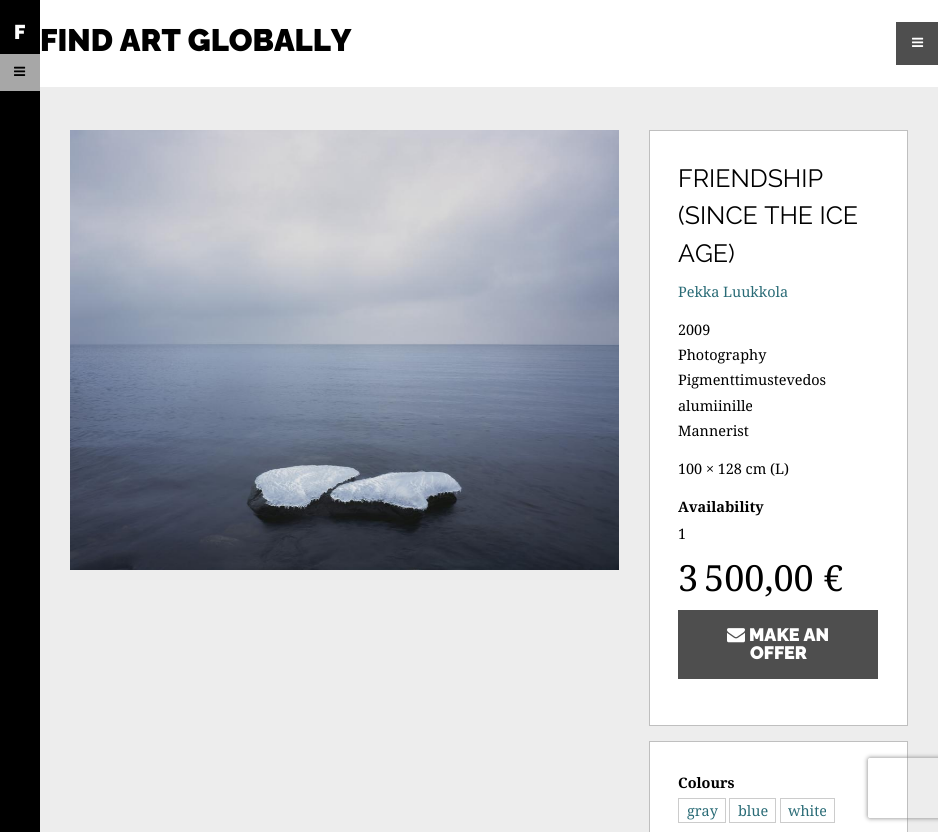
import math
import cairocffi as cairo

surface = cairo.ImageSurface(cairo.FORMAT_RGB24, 938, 832)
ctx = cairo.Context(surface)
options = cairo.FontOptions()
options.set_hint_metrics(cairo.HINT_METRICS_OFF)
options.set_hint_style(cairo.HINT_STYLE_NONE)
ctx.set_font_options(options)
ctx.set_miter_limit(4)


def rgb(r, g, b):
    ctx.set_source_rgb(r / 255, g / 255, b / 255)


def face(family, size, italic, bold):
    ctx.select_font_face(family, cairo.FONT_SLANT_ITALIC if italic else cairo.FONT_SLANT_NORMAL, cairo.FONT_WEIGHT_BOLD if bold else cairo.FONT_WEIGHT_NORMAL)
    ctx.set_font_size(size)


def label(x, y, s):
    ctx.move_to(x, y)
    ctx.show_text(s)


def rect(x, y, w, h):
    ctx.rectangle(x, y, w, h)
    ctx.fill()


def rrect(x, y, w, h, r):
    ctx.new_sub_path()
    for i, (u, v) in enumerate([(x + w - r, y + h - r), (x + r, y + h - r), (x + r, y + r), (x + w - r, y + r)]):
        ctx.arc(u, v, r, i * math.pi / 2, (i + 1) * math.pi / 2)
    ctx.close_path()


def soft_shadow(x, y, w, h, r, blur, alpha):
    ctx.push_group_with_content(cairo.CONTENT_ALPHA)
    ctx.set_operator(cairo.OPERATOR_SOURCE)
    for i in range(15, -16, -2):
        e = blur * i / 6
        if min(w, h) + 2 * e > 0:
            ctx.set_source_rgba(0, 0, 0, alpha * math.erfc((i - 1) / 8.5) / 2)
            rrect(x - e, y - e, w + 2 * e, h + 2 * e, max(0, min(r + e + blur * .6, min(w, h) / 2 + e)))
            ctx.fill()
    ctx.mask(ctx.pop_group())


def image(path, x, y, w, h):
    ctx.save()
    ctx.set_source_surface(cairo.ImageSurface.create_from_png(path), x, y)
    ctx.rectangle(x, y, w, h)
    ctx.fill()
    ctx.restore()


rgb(237, 237, 237)
ctx.paint()
rgb(0, 0, 0)
rect(0, 0, 40, 832)
face('Raleway Black', 20, 0, 0)
rgb(255, 255, 255)
label(14, 39, 'F')
rgb(167, 167, 167)
rect(0, 54, 40, 37)
image('image0.png', 14, 66, 12, 10)
rgb(255, 255, 255)
rect(40, 0, 898, 87)
face('Raleway Black', 31, 0, 0)
rgb(0, 0, 0)
label(40, 51, 'FIND ART GLOBALLY')
rgb(78, 78, 78)
rect(896, 22, 42, 43)
image('image1.png', 912, 37, 12, 10)
image('image2.png', 70, 130, 549, 440)
rgb(255, 255, 255)
ctx.rectangle(649.5, 130.5, 258, 595)
ctx.fill_preserve()
rgb(191, 191, 191)
ctx.set_line_width(1)
ctx.stroke()
face('Raleway', 25, 0, 0)
rgb(0, 0, 0)
label(678, 187, 'FRIENDSHIP')
label(678, 224, '(SINCE THE ICE')
label(678, 262, 'AGE)')
face('Noto Serif', 14.4, 0, 0)
rgb(41, 107, 118)
label(678, 297, 'Pekka Luukkola')
rgb(0, 0, 0)
label(678, 335, '2009')
label(678, 360, 'Photography')
label(678, 385, 'Pigmenttimustevedos')
label(678, 411, 'alumiinille')
label(678, 436, 'Mannerist')
label(678, 474, '100 × 128 cm (L)')
face('Noto Serif', 14.4, 0, 1)
label(678, 512, 'Availability')
face('Noto Serif', 14.4, 0, 0)
label(678, 539, '1')
face('Noto Serif', 36, 0, 0)
label(678, 591, '3 500,00 €')
rgb(78, 78, 78)
rect(678, 610, 200, 69)
image('image3.png', 727, 628, 18, 15)
face('Raleway Black', 18, 0, 0)
rgb(255, 255, 255)
label(749, 641, 'MAKE AN')
label(750, 659, 'OFFER')
ctx.rectangle(649.5, 741.5, 258, 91)
ctx.fill_preserve()
rgb(191, 191, 191)
ctx.stroke()
face('Noto Serif', 14.4, 0, 1)
rgb(0, 0, 0)
label(678, 788, 'Colours')
ctx.rectangle(678.5, 798.5, 47, 24)
rgb(204, 204, 204)
ctx.stroke()
face('Noto Serif', 14.4, 0, 0)
rgb(41, 107, 118)
label(687, 816, 'gray')
ctx.rectangle(729.5, 798.5, 46, 24)
rgb(204, 204, 204)
ctx.stroke()
rgb(41, 107, 118)
label(738, 816, 'blue')
ctx.rectangle(780.5, 798.5, 54, 24)
rgb(204, 204, 204)
ctx.stroke()
rgb(41, 107, 118)
label(788, 816, 'white')
ctx.save()
ctx.set_fill_rule(cairo.FILL_RULE_EVEN_ODD)
ctx.new_path()
ctx.move_to(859, 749)
ctx.line_to(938, 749)
ctx.line_to(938, 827)
ctx.line_to(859, 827)
ctx.close_path()
ctx.move_to(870, 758)
ctx.line_to(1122, 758)
ctx.curve_to(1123, 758, 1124, 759, 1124, 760)
ctx.line_to(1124, 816)
ctx.curve_to(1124, 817, 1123, 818, 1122, 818)
ctx.line_to(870, 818)
ctx.curve_to(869, 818, 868, 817, 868, 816)
ctx.line_to(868, 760)
ctx.curve_to(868, 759, 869, 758, 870, 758)
ctx.close_path()
ctx.clip()
rgb(128, 128, 128)
soft_shadow(868, 758, 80, 60, 2, 2.5, 1)
ctx.restore()
surface.write_to_png('render.png')
